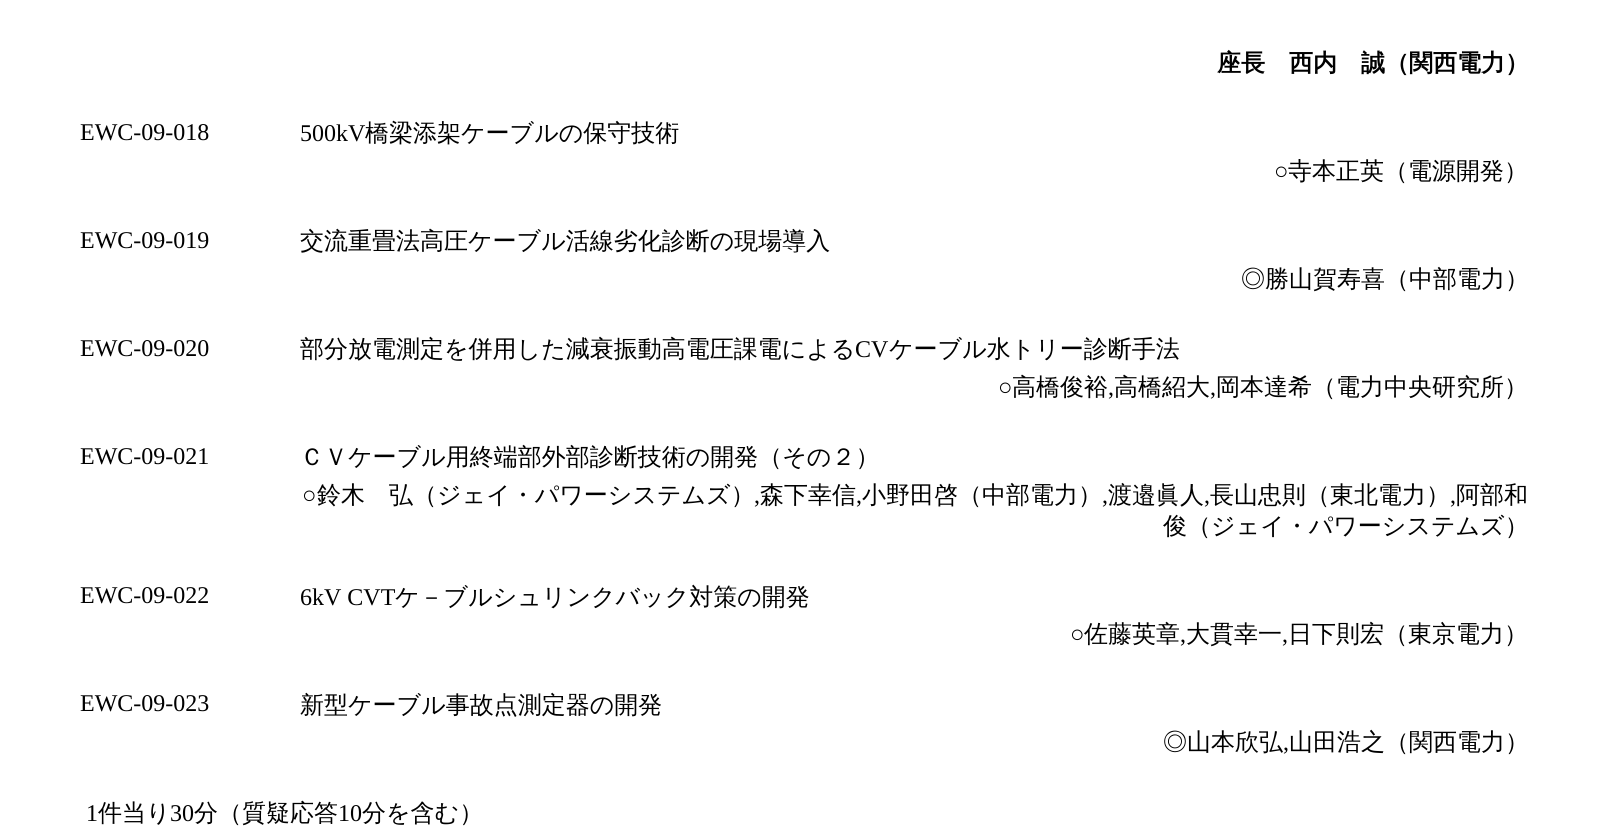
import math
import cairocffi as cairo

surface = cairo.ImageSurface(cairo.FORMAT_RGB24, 1607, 830)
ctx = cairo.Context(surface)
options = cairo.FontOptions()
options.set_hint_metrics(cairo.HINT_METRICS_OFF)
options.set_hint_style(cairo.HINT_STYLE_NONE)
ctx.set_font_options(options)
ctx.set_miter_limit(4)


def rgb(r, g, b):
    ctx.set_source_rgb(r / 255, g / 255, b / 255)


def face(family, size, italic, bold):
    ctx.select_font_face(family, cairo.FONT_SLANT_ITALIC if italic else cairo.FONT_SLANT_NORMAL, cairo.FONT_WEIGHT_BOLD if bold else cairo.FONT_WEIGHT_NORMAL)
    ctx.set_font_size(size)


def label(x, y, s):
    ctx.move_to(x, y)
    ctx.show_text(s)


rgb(255, 255, 255)
ctx.paint()
face('WenQuanYi Zen Hei', 24, 0, 1)
rgb(0, 0, 0)
label(1217, 71, '座長　西内　誠（関西電力）')
face('Liberation Serif', 24, 0, 0)
label(80, 140, 'EWC-09-018')
label(300, 141, '500kV')
face('WenQuanYi Zen Hei Medium', 24, 0, 0)
label(365, 141, '橋梁添架ケーブルの保守技術')
face('Liberation Serif', 24, 0, 0)
label(1274, 179, '○')
face('WenQuanYi Zen Hei Medium', 24, 0, 0)
label(1288, 179, '寺本正英（電源開発）')
face('Liberation Serif', 24, 0, 0)
label(80, 248, 'EWC-09-019')
face('WenQuanYi Zen Hei Medium', 24, 0, 0)
label(300, 249, '交流重畳法高圧ケーブル活線劣化診断の現場導入')
label(1241, 287, '◎勝山賀寿喜（中部電力）')
face('Liberation Serif', 24, 0, 0)
label(80, 356, 'EWC-09-020')
face('WenQuanYi Zen Hei Medium', 24, 0, 0)
label(300, 357, '部分放電測定を併用した減衰振動高電圧課電による')
face('Liberation Serif', 24, 0, 0)
label(855, 357, 'CV')
face('WenQuanYi Zen Hei Medium', 24, 0, 0)
label(889, 357, 'ケーブル水トリー診断手法')
face('Liberation Serif', 24, 0, 0)
label(998, 395, '○')
face('WenQuanYi Zen Hei Medium', 24, 0, 0)
label(1012, 395, '高橋俊裕')
label(1114, 395, '高橋紹大')
label(1216, 395, '岡本達希（電力中央研究所）')
face('Liberation Serif', 24, 0, 0)
label(1108, 395, ',')
label(1210, 395, ',')
label(80, 464, 'EWC-09-021')
face('WenQuanYi Zen Hei Medium', 24, 0, 0)
label(300, 465, 'ＣＶケーブル用終端部外部診断技術の開発（その２）')
face('Liberation Serif', 24, 0, 0)
label(302, 503, '○')
face('WenQuanYi Zen Hei Medium', 24, 0, 0)
label(317, 503, '鈴木　弘（ジェイ・パワーシステムズ）')
label(760, 503, '森下幸信')
label(862, 503, '小野田啓（中部電力）')
label(1108, 503, '渡邉眞人')
label(1210, 503, '長山忠則（東北電力）')
label(1456, 503, '阿部和')
face('Liberation Serif', 24, 0, 0)
label(754, 503, ',')
label(856, 503, ',')
label(1102, 503, ',')
label(1204, 503, ',')
label(1450, 503, ',')
face('WenQuanYi Zen Hei Medium', 24, 0, 0)
label(1163, 534, '俊（ジェイ・パワーシステムズ）')
face('Liberation Serif', 24, 0, 0)
label(80, 603, 'EWC-09-022')
label(300, 605, '6kV CVT')
face('WenQuanYi Zen Hei Medium', 24, 0, 0)
label(395, 605, 'ケ－ブルシュリンクバック対策の開発')
face('Liberation Serif', 24, 0, 0)
label(1070, 642, '○')
face('WenQuanYi Zen Hei Medium', 24, 0, 0)
label(1084, 642, '佐藤英章')
label(1186, 642, '大貫幸一')
label(1288, 642, '日下則宏（東京電力）')
face('Liberation Serif', 24, 0, 0)
label(1180, 642, ',')
label(1282, 642, ',')
label(80, 711, 'EWC-09-023')
face('WenQuanYi Zen Hei Medium', 24, 0, 0)
label(300, 713, '新型ケーブル事故点測定器の開発')
label(1163, 750, '◎山本欣弘')
face('Liberation Serif', 24, 0, 0)
label(1283, 750, ',')
face('WenQuanYi Zen Hei Medium', 24, 0, 0)
label(1289, 750, '山田浩之（関西電力）')
face('Liberation Serif', 24, 0, 0)
label(86, 821, '1')
face('WenQuanYi Zen Hei Medium', 24, 0, 0)
label(98, 821, '件当り')
face('Liberation Serif', 24, 0, 0)
label(170, 821, '30')
face('WenQuanYi Zen Hei Medium', 24, 0, 0)
label(194, 821, '分（質疑応答')
face('Liberation Serif', 24, 0, 0)
label(338, 821, '10')
face('WenQuanYi Zen Hei Medium', 24, 0, 0)
label(362, 821, '分を含む）')
surface.write_to_png('render.png')
